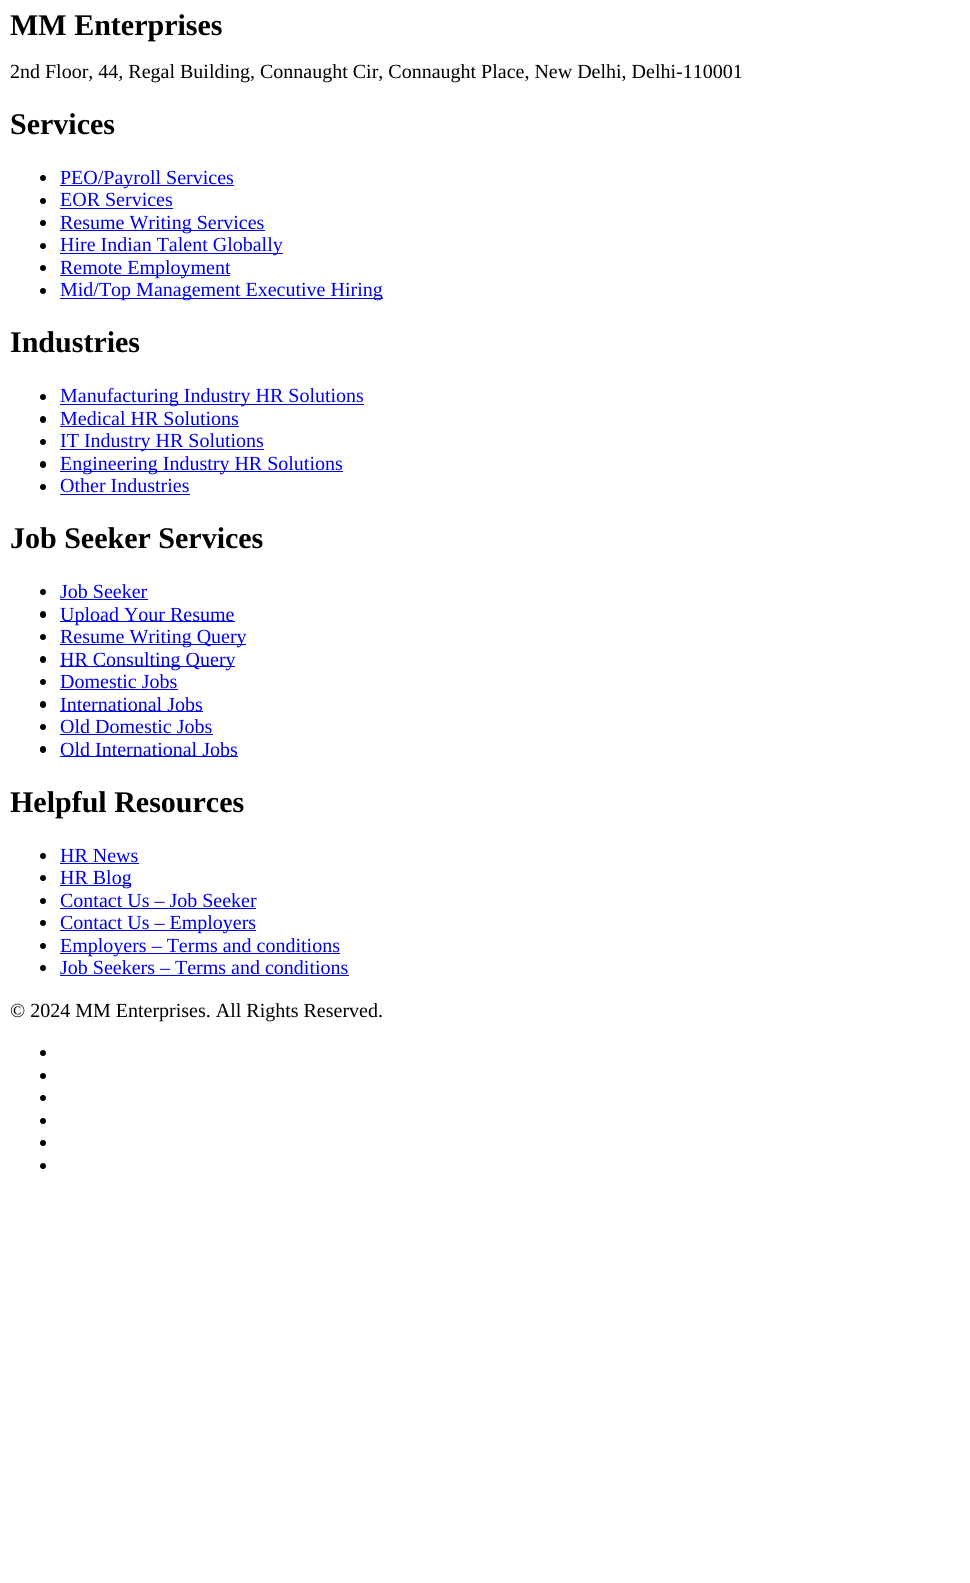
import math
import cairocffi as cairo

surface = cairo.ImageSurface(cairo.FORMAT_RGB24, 970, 1583)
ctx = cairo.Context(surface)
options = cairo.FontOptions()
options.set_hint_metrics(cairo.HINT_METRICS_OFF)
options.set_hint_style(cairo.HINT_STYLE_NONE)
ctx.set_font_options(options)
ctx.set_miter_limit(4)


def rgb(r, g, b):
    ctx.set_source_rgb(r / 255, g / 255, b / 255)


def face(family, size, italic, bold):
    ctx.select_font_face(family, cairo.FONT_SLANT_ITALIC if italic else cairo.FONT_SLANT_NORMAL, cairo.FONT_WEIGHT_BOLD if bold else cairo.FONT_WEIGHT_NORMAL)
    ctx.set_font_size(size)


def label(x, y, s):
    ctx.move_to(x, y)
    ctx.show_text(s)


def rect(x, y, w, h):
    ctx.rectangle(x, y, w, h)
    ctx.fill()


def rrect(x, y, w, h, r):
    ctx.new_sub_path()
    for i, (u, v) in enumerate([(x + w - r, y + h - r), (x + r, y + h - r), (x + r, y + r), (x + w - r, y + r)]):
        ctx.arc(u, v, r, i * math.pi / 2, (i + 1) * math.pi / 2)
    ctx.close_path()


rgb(255, 255, 255)
ctx.paint()
face('Liberation Serif', 30, 0, 1)
rgb(0, 0, 0)
label(10, 35, 'MM Enterprises')
face('Liberation Serif', 20, 0, 0)
label(10, 78, '2nd Floor, 44, Regal Building, Connaught Cir, Connaught Place, New Delhi, Delhi-110001')
face('Liberation Serif', 30, 0, 1)
label(10, 134, 'Services')
ctx.new_path()
ctx.arc(43, 178, 3, 0, 2 * math.pi)
ctx.fill()
rgb(0, 0, 238)
rect(60, 185, 174, 1)
face('Liberation Serif', 20, 0, 0)
label(60, 184, 'PEO/Payroll Services')
rgb(0, 0, 0)
ctx.new_path()
ctx.arc(43, 201, 3, 0, 2 * math.pi)
ctx.fill()
rgb(0, 0, 238)
label(60, 206, 'EOR Services')
rect(60, 208, 113, 1)
rgb(0, 0, 0)
ctx.new_path()
ctx.arc(43, 223, 3, 0, 2 * math.pi)
ctx.fill()
rgb(0, 0, 238)
rect(60, 230, 205, 1)
label(60, 229, 'Resume Writing Services')
rgb(0, 0, 0)
ctx.new_path()
ctx.arc(43, 246, 3, 0, 2 * math.pi)
ctx.fill()
rgb(0, 0, 238)
rect(60, 253, 223, 1)
label(60, 251, 'Hire Indian Talent Globally')
rgb(0, 0, 0)
ctx.new_path()
ctx.arc(43, 268, 3, 0, 2 * math.pi)
ctx.fill()
rgb(0, 0, 238)
rect(60, 275, 170, 1)
label(60, 274, 'Remote Employment')
rgb(0, 0, 0)
ctx.new_path()
ctx.arc(43, 291, 3, 0, 2 * math.pi)
ctx.fill()
rgb(0, 0, 238)
rect(60, 298, 323, 1)
label(60, 296, 'Mid/Top Management Executive Hiring')
face('Liberation Serif', 30, 0, 1)
rgb(0, 0, 0)
label(10, 352, 'Industries')
ctx.new_path()
ctx.arc(43, 397, 3, 0, 2 * math.pi)
ctx.fill()
rgb(0, 0, 238)
rect(60, 404, 304, 1)
face('Liberation Serif', 20, 0, 0)
label(60, 402, 'Manufacturing Industry HR Solutions')
rgb(0, 0, 0)
rrect(40, 416, 6, 7, 3)
ctx.fill()
rgb(0, 0, 238)
label(60, 425, 'Medical HR Solutions')
rect(60, 426, 179, 1)
rgb(0, 0, 0)
ctx.new_path()
ctx.arc(43, 442, 3, 0, 2 * math.pi)
ctx.fill()
rgb(0, 0, 238)
rect(60, 449, 204, 1)
label(60, 447, 'IT Industry HR Solutions')
rgb(0, 0, 0)
rrect(40, 461, 6, 7, 3)
ctx.fill()
rgb(0, 0, 238)
rect(60, 471, 283, 1)
label(60, 470, 'Engineering Industry HR Solutions')
rgb(0, 0, 0)
ctx.new_path()
ctx.arc(43, 487, 3, 0, 2 * math.pi)
ctx.fill()
rgb(0, 0, 238)
label(60, 492, 'Other Industries')
rect(60, 494, 130, 1)
face('Liberation Serif', 30, 0, 1)
rgb(0, 0, 0)
label(10, 548, 'Job Seeker Services')
ctx.new_path()
ctx.arc(43, 592, 3, 0, 2 * math.pi)
ctx.fill()
face('Liberation Serif', 20, 0, 0)
rgb(0, 0, 238)
label(60, 598, 'Job Seeker')
rect(60, 599, 88, 1)
rgb(0, 0, 0)
rrect(40, 611, 6, 7, 3)
ctx.fill()
rgb(0, 0, 238)
rect(60, 621, 175, 1)
label(60, 621, 'Upload Your Resume')
rgb(0, 0, 0)
ctx.new_path()
ctx.arc(43, 637, 3, 0, 2 * math.pi)
ctx.fill()
rgb(0, 0, 238)
rect(60, 644, 186, 1)
label(60, 643, 'Resume Writing Query')
rgb(0, 0, 0)
rrect(40, 656, 6, 7, 3)
ctx.fill()
rgb(0, 0, 238)
rect(60, 666, 175, 1)
label(60, 666, 'HR Consulting Query')
rgb(0, 0, 0)
ctx.new_path()
ctx.arc(43, 682, 3, 0, 2 * math.pi)
ctx.fill()
rgb(0, 0, 238)
label(60, 688, 'Domestic Jobs')
rect(60, 689, 118, 1)
rgb(0, 0, 0)
rrect(40, 701, 6, 7, 3)
ctx.fill()
rgb(0, 0, 238)
rect(60, 711, 143, 1)
label(60, 711, 'International Jobs')
rgb(0, 0, 0)
ctx.new_path()
ctx.arc(43, 727, 3, 0, 2 * math.pi)
ctx.fill()
rgb(0, 0, 238)
label(60, 733, 'Old Domestic Jobs')
rect(60, 734, 153, 1)
rgb(0, 0, 0)
rrect(40, 746, 6, 7, 3)
ctx.fill()
rgb(0, 0, 238)
rect(60, 756, 178, 1)
label(60, 756, 'Old International Jobs')
face('Liberation Serif', 30, 0, 1)
rgb(0, 0, 0)
label(10, 812, 'Helpful Resources')
ctx.new_path()
ctx.arc(43, 856, 3, 0, 2 * math.pi)
ctx.fill()
face('Liberation Serif', 20, 0, 0)
rgb(0, 0, 238)
label(60, 862, 'HR News')
rect(60, 863, 79, 1)
rgb(0, 0, 0)
ctx.new_path()
ctx.arc(43, 878, 3, 0, 2 * math.pi)
ctx.fill()
rgb(0, 0, 238)
rect(60, 885, 71, 1)
label(60, 884, 'HR Blog')
rgb(0, 0, 0)
ctx.new_path()
ctx.arc(43, 901, 3, 0, 2 * math.pi)
ctx.fill()
rgb(0, 0, 238)
label(60, 907, 'Contact Us – Job Seeker')
rect(60, 908, 196, 1)
rgb(0, 0, 0)
ctx.new_path()
ctx.arc(43, 923, 3, 0, 2 * math.pi)
ctx.fill()
rgb(0, 0, 238)
rect(60, 930, 196, 1)
label(60, 929, 'Contact Us – Employers')
rgb(0, 0, 0)
ctx.new_path()
ctx.arc(43, 946, 3, 0, 2 * math.pi)
ctx.fill()
rgb(0, 0, 238)
rect(60, 953, 280, 1)
label(60, 952, 'Employers – Terms and conditions')
rgb(0, 0, 0)
ctx.new_path()
ctx.arc(43, 968, 3, 0, 2 * math.pi)
ctx.fill()
rgb(0, 0, 238)
label(60, 974, 'Job Seekers – Terms and conditions')
rect(60, 975, 289, 1)
rgb(0, 0, 0)
label(10, 1017, '© 2024 MM Enterprises. All Rights Reserved.')
ctx.new_path()
ctx.arc(43, 1053, 3, 0, 2 * math.pi)
ctx.fill()
ctx.arc(43, 1076, 3, 0, 2 * math.pi)
ctx.fill()
ctx.arc(43, 1098, 3, 0, 2 * math.pi)
ctx.fill()
ctx.arc(43, 1121, 3, 0, 2 * math.pi)
ctx.fill()
ctx.arc(43, 1143, 3, 0, 2 * math.pi)
ctx.fill()
ctx.arc(43, 1166, 3, 0, 2 * math.pi)
ctx.fill()
surface.write_to_png('render.png')
